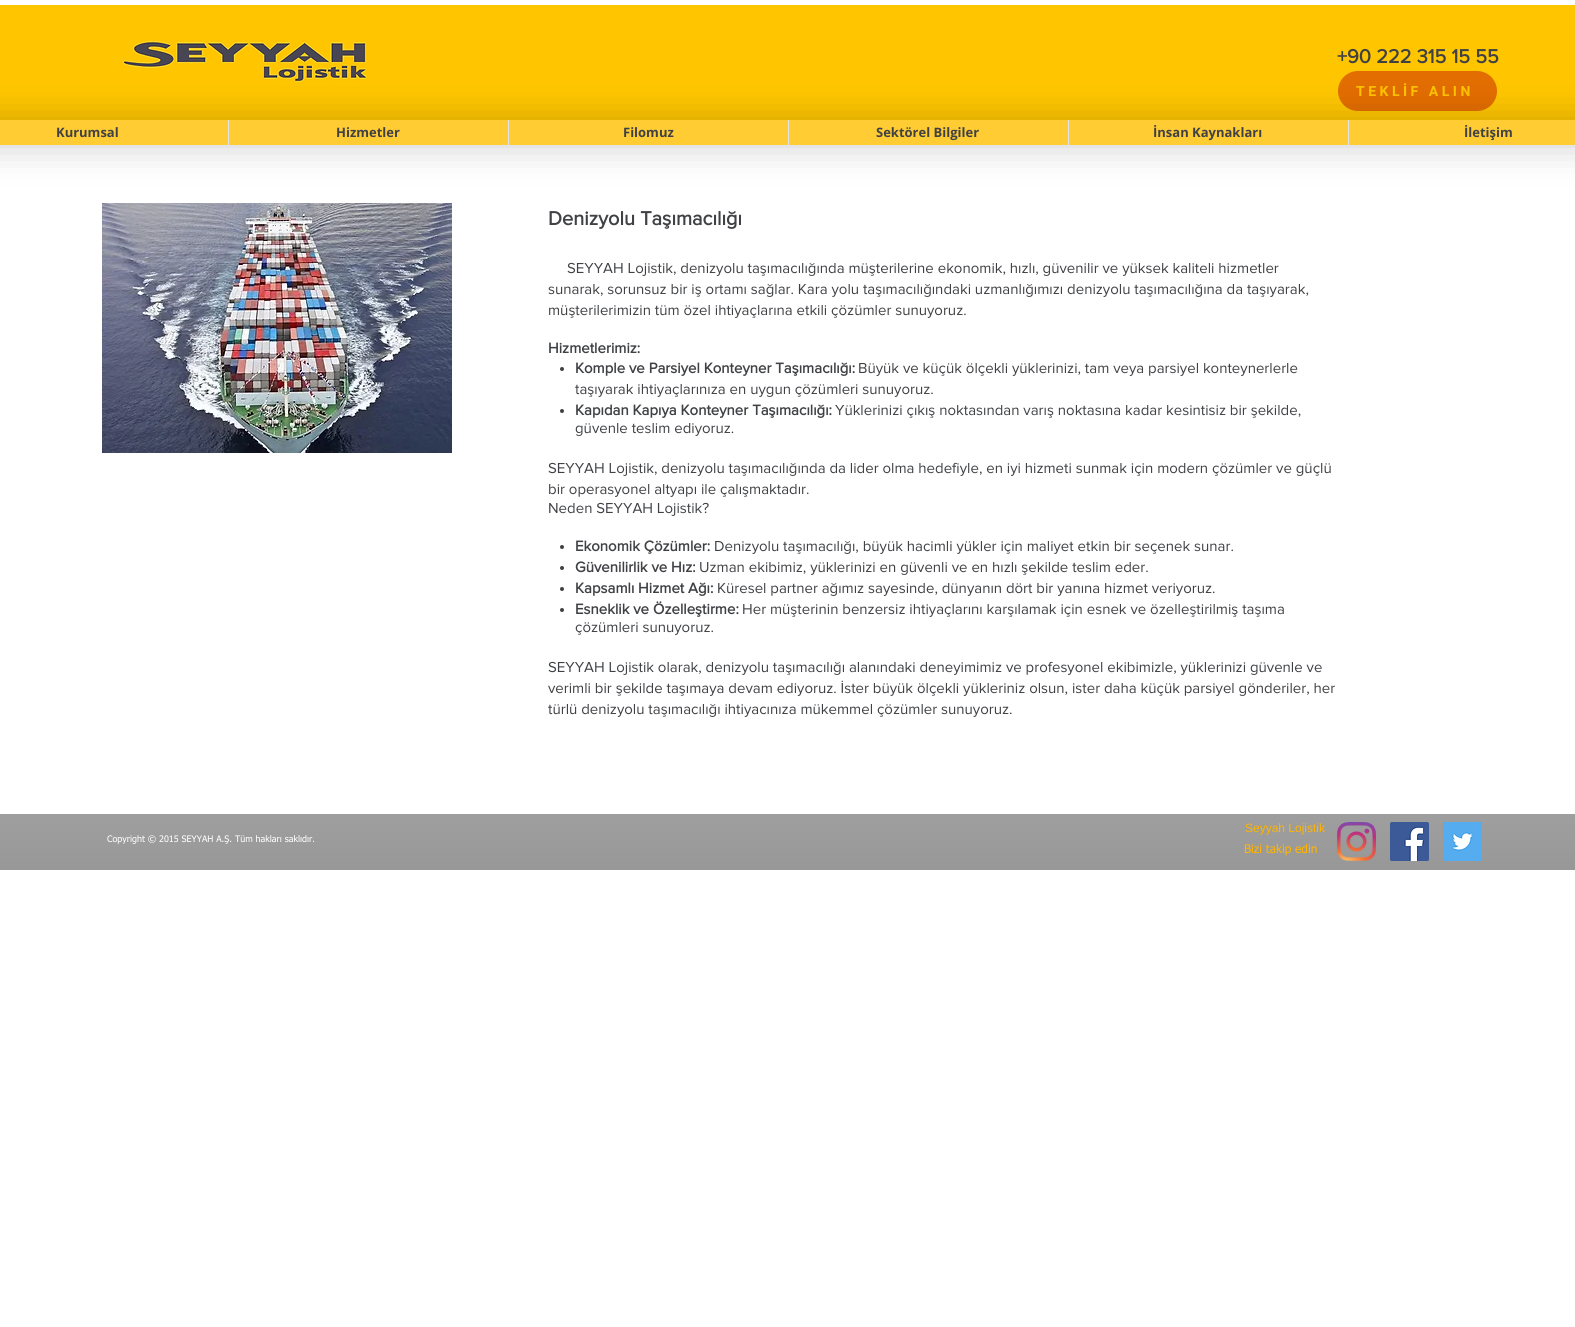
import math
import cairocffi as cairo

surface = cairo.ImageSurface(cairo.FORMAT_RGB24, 1575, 1327)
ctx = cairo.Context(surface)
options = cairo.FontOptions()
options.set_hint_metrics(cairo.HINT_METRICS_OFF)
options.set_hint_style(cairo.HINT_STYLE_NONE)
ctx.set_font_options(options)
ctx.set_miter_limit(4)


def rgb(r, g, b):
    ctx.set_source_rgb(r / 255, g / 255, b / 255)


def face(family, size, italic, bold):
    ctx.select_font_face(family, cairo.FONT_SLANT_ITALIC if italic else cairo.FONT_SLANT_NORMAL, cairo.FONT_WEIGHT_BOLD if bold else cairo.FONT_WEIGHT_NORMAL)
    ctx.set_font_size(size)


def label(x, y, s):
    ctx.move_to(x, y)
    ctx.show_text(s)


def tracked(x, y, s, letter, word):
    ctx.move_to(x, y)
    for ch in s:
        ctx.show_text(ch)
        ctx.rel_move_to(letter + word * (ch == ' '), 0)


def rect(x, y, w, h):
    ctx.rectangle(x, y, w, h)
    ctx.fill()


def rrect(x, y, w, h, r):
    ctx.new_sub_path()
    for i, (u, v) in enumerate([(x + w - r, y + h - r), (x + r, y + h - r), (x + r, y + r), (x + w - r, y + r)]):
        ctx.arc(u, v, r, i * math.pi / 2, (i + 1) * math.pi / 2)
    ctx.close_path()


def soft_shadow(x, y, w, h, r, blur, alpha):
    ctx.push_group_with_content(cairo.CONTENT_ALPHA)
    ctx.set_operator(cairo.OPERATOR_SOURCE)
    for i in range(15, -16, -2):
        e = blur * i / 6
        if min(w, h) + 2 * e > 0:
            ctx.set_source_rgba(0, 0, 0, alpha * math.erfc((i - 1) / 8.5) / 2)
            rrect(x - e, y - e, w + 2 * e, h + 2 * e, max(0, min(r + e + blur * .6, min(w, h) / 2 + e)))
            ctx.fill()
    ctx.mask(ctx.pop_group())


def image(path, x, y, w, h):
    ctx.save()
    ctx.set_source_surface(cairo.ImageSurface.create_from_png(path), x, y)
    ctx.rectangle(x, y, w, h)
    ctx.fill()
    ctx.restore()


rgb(255, 255, 255)
ctx.paint()
rgb(255, 198, 0)
rect(0, 5, 1575, 115)
image('image0.png', 123, 41, 244, 41)
face('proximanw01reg', 20, 0, 1)
rgb(64, 65, 68)
label(1337, 63, '+90 222 315 15 55')
rgb(227, 109, 1)
rrect(1338, 71, 159, 40, 20)
ctx.fill()
face('Heebo', 14, 0, 1)
rgb(255, 196, 0)
tracked(1356, 96, 'TEKLİF ALIN', 3.5, 0)
image('image1.png', 102, 203, 350, 250)
rgb(0, 0, 0)
soft_shadow(-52, 120, 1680, 25, 0, 19.5, 0.21)
rgb(255, 204, 51)
rect(0, 120, 1575, 25)
face('Open Sans', 13, 0, 1)
rgb(64, 65, 68)
label(56, 137, 'Kurumsal')
rgb(225, 229, 237)
rect(228, 120, 1, 25)
rgb(64, 65, 68)
label(336, 137, 'Hizmetler')
rgb(225, 229, 237)
rect(508, 120, 1, 25)
rgb(64, 65, 68)
label(623, 137, 'Filomuz')
rgb(225, 229, 237)
rect(788, 120, 1, 25)
rgb(64, 65, 68)
label(876, 137, 'Sektörel Bilgiler')
rgb(225, 229, 237)
rect(1068, 120, 1, 25)
rgb(64, 65, 68)
label(1153, 137, 'İnsan Kaynakları')
rgb(225, 229, 237)
rect(1348, 120, 1, 25)
rgb(64, 65, 68)
label(1464, 137, 'İletişim')
face('proximanw01reg', 20, 0, 1)
label(548, 225, 'Denizyolu Taşımacılığı')
face('proximanw01reg', 15, 0, 0)
label(567, 273, 'SEYYAH Lojistik, denizyolu taşımacılığında müşterilerine ekonomik, hızlı, güvenilir ve yüksek kaliteli hizmetler')
label(548, 294, 'sunarak, sorunsuz bir iş ortamı sağlar. Kara yolu taşımacılığındaki uzmanlığımızı denizyolu taşımacılığına da taşıyarak,')
label(548, 315, 'müşterilerimizin tüm özel ihtiyaçlarına etkili çözümler sunuyoruz.')
face('proximanw01reg', 15, 0, 1)
label(548, 353, 'Hizmetlerimiz:')
ctx.new_path()
ctx.arc(562, 369, 2, 0, 2 * math.pi)
ctx.fill()
label(575, 373, 'Komple ve Parsiyel Konteyner Taşımacılığı:')
face('proximanw01reg', 15, 0, 0)
label(858, 373, 'Büyük ve küçük ölçekli yüklerinizi, tam veya parsiyel konteynerlerle')
label(575, 394, 'taşıyarak ihtiyaçlarınıza en uygun çözümleri sunuyoruz.')
ctx.new_path()
ctx.arc(562, 411, 2, 0, 2 * math.pi)
ctx.fill()
face('proximanw01reg', 15, 0, 1)
label(575, 415, 'Kapıdan Kapıya Konteyner Taşımacılığı:')
face('proximanw01reg', 15, 0, 0)
label(835, 415, 'Yüklerinizi çıkış noktasından varış noktasına kadar kesintisiz bir şekilde,')
label(575, 433, 'güvenle teslim ediyoruz.')
label(548, 473, 'SEYYAH Lojistik, denizyolu taşımacılığında da lider olma hedefiyle, en iyi hizmeti sunmak için modern çözümler ve güçlü')
label(548, 494, 'bir operasyonel altyapı ile çalışmaktadır.')
label(548, 513, 'Neden SEYYAH Lojistik?')
ctx.new_path()
ctx.arc(562, 547, 2, 0, 2 * math.pi)
ctx.fill()
face('proximanw01reg', 15, 0, 1)
label(575, 551, 'Ekonomik Çözümler:')
face('proximanw01reg', 15, 0, 0)
label(714, 551, 'Denizyolu taşımacılığı, büyük hacimli yükler için maliyet etkin bir seçenek sunar.')
ctx.new_path()
ctx.arc(562, 568, 2, 0, 2 * math.pi)
ctx.fill()
face('proximanw01reg', 15, 0, 1)
label(575, 572, 'Güvenilirlik ve Hız:')
face('proximanw01reg', 15, 0, 0)
label(699, 572, 'Uzman ekibimiz, yüklerinizi en güvenli ve en hızlı şekilde teslim eder.')
ctx.new_path()
ctx.arc(562, 589, 2, 0, 2 * math.pi)
ctx.fill()
face('proximanw01reg', 15, 0, 1)
label(575, 593, 'Kapsamlı Hizmet Ağı:')
face('proximanw01reg', 15, 0, 0)
label(717, 593, 'Küresel partner ağımız sayesinde, dünyanın dört bir yanına hizmet veriyoruz.')
ctx.new_path()
ctx.arc(562, 610, 2, 0, 2 * math.pi)
ctx.fill()
face('proximanw01reg', 15, 0, 1)
label(575, 614, 'Esneklik ve Özelleştirme:')
face('proximanw01reg', 15, 0, 0)
label(742, 614, 'Her müşterinin benzersiz ihtiyaçlarını karşılamak için esnek ve özelleştirilmiş taşıma')
label(575, 632, 'çözümleri sunuyoruz.')
label(548, 672, 'SEYYAH Lojistik olarak, denizyolu taşımacılığı alanındaki deneyimimiz ve profesyonel ekibimizle, yüklerinizi güvenle ve')
label(548, 693, 'verimli bir şekilde taşımaya devam ediyoruz. İster büyük ölçekli yükleriniz olsun, ister daha küçük parsiyel gönderiler, her')
label(548, 714, 'türlü denizyolu taşımacılığı ihtiyacınıza mükemmel çözümler sunuyoruz.')
rgb(125, 125, 125)
rect(0, 814, 1575, 56)
image('image2.png', 0, 814, 1575, 56)
face('Liberation Sans', 12, 0, 0)
rgb(255, 180, 0)
label(1245, 832, 'Seyyah Lojistik')
image('image3.png', 1337, 822, 39, 39)
image('image4.png', 1390, 822, 39, 39)
image('image5.png', 1443, 822, 39, 39)
face('tahoma', 9, 0, 0)
rgb(255, 255, 255)
label(107, 842, 'Copyright © 2015 SEYYAH A.Ş. Tüm hakları saklıdır.')
face('tahoma', 12, 0, 0)
rgb(255, 180, 0)
label(1244, 853, 'Bizi takip edin')
surface.write_to_png('render.png')
